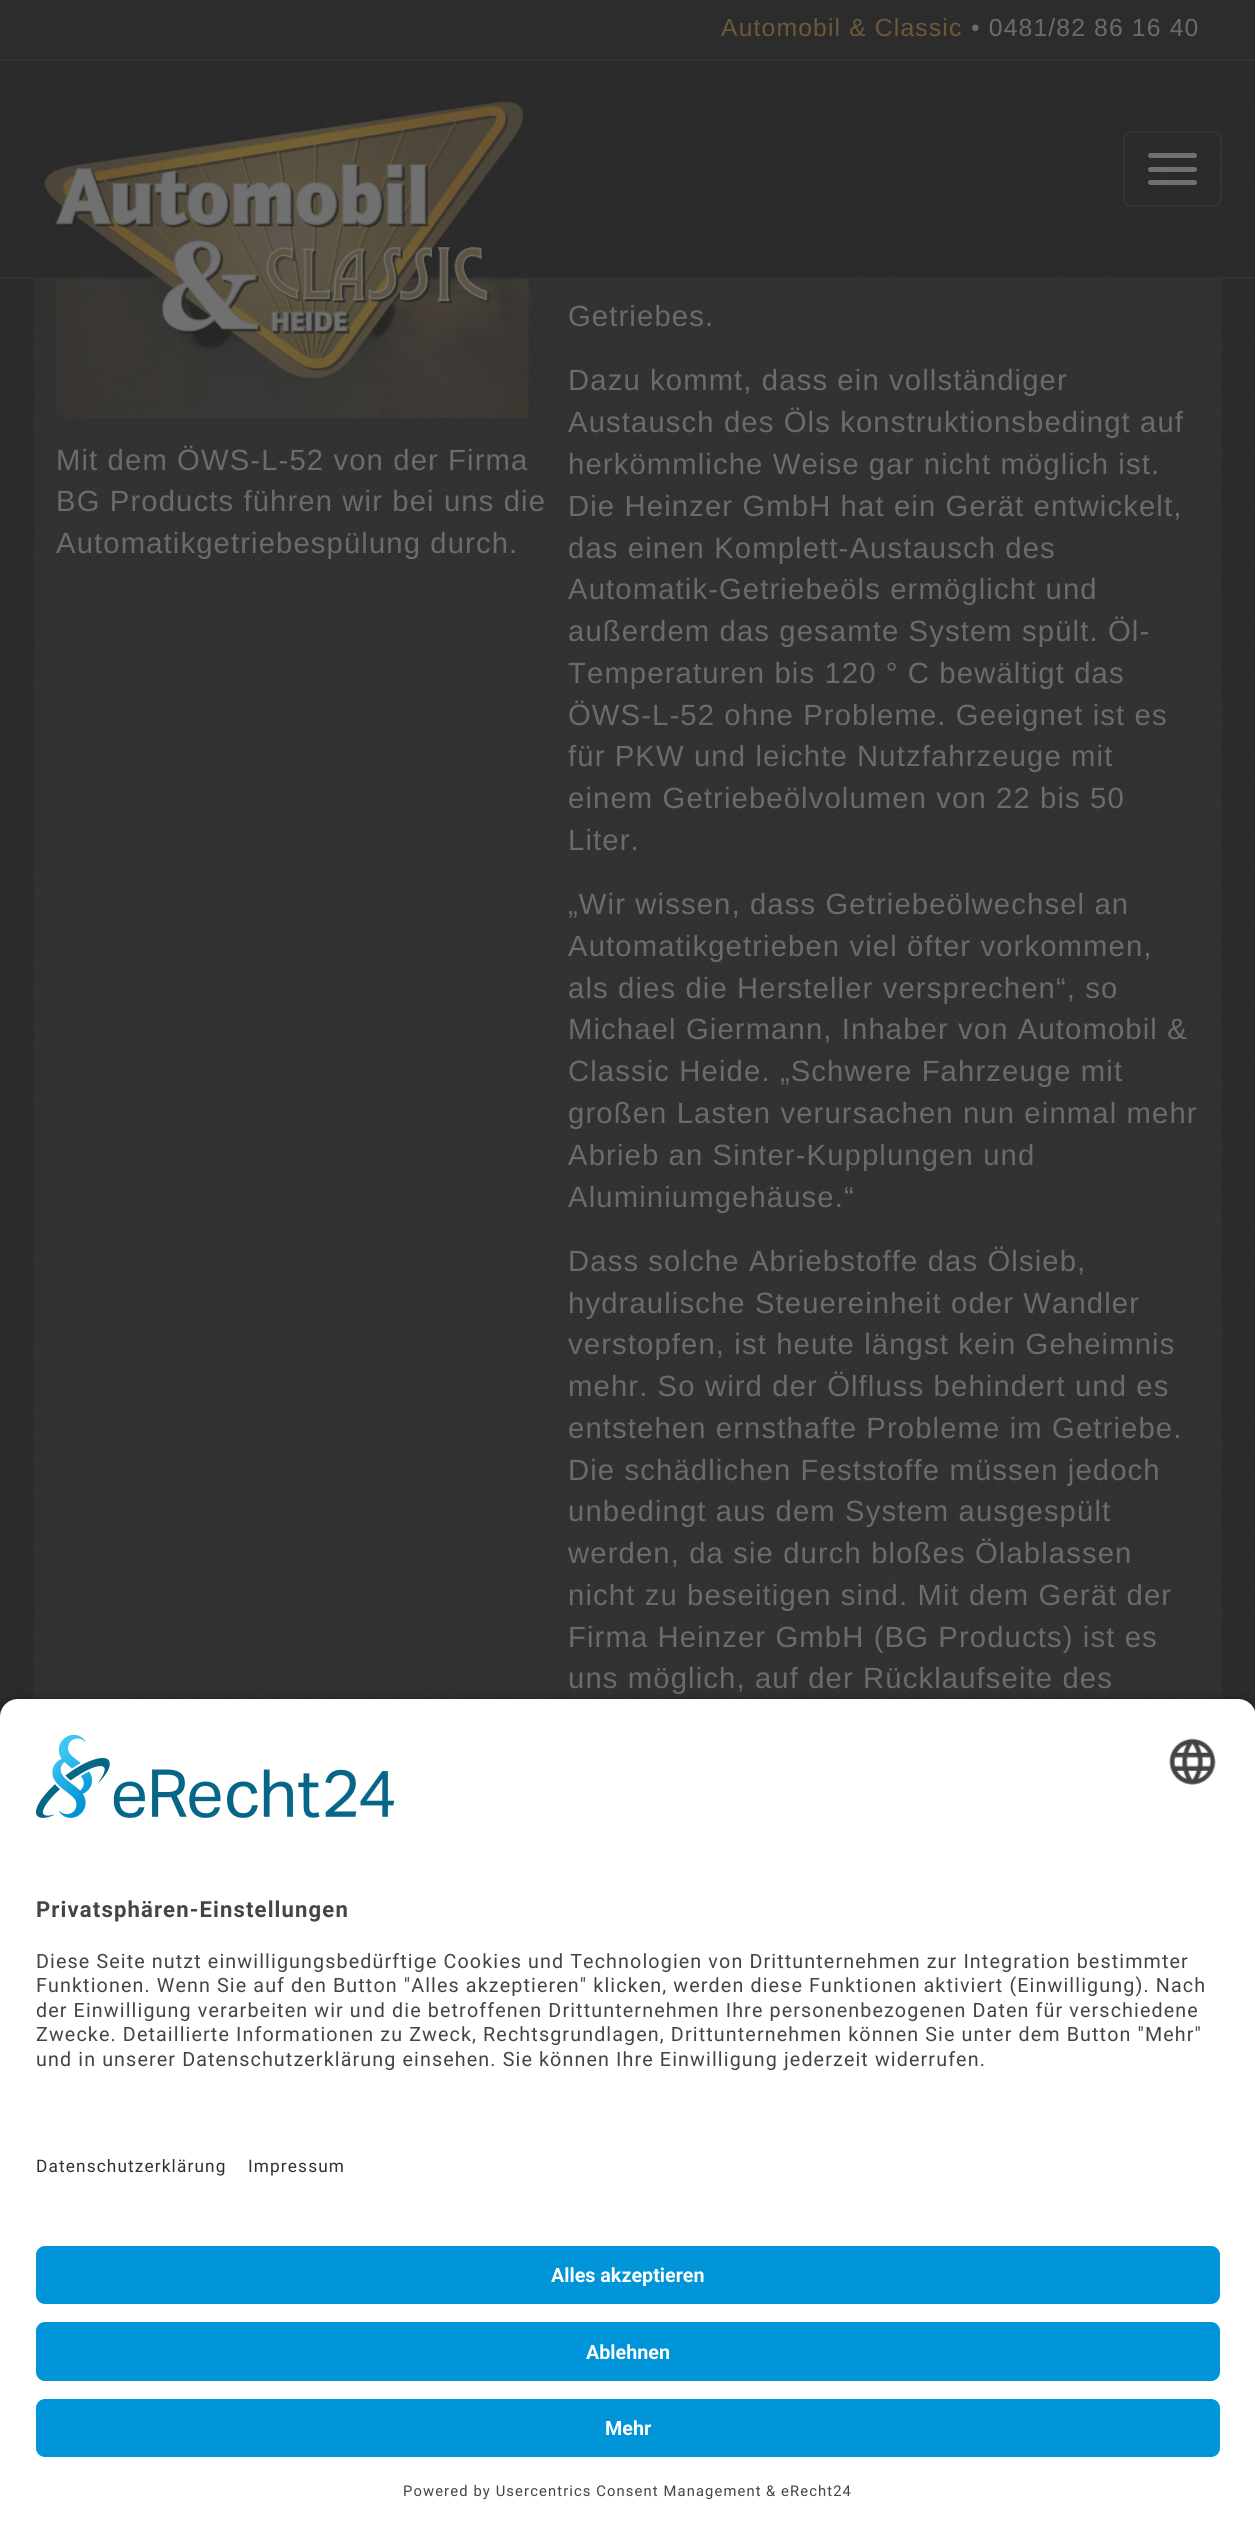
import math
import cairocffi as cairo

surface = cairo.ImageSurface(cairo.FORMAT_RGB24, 1255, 2536)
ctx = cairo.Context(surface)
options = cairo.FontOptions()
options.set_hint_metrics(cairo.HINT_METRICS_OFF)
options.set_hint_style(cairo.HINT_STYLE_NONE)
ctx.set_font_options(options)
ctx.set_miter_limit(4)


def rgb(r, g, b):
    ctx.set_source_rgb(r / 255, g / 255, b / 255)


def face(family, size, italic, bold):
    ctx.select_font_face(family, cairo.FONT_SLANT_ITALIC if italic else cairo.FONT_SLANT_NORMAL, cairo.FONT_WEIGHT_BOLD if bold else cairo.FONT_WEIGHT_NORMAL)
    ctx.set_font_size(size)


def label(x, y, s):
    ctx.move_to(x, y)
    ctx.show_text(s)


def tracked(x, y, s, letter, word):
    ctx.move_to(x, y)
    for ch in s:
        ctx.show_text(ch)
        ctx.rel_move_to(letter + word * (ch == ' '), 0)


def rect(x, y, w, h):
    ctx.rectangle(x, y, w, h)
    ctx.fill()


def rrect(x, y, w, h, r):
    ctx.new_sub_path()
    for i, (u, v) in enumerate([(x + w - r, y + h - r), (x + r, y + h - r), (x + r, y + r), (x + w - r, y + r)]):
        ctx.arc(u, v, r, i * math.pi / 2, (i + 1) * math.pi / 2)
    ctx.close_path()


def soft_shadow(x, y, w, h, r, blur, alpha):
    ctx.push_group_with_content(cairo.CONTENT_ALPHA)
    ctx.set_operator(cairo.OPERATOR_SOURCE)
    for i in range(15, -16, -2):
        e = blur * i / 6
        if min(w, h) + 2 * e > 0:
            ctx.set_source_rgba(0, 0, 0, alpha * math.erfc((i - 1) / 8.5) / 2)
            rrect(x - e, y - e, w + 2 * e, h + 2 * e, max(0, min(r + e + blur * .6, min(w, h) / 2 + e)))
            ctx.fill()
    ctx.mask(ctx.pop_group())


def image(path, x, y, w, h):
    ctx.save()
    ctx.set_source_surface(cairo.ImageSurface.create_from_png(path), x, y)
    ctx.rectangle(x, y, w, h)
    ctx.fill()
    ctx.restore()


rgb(255, 255, 255)
ctx.paint()
image('image0.png', 0, 279, 1255, 1438)
image('image1.png', 0, 61, 1255, 218)
ctx.set_source_rgba(0.439, 0.439, 0.439, 0.1)
rect(0, 277, 1255, 2)
rgb(44, 44, 44)
rect(0, 0, 1255, 59)
rgb(51, 51, 51)
rect(0, 59, 1255, 2)
face('Liberation Sans', 24.75, 0, 0)
rgb(108, 88, 59)
tracked(721, 36, 'Automobil & Classic', 1.12, 0)
rgb(107, 107, 107)
tracked(971, 36, '• 0481/82 86 16 40', 1.12, 0)
image('image3.png', 56, 279, 473, 139)
image('image2.png', 44, 101, 480, 278)
rrect(1124, 132, 97, 74, 8)
rgb(51, 51, 51)
ctx.stroke()
rgb(112, 112, 112)
rrect(1148, 153, 49, 5, 2.5)
ctx.fill()
rrect(1148, 167, 49, 5, 2.5)
ctx.fill()
rrect(1148, 180, 49, 5, 2.5)
ctx.fill()
face('Liberation Sans', 29.25, 0, 0)
rgb(107, 107, 107)
tracked(56, 470, 'Mit dem ÖWS-L-52 von der Firma', 1.12, 0)
tracked(56, 511, 'BG Products führen wir bei uns die', 1.12, 0)
tracked(56, 553, 'Automatikgetriebespülung durch.', 1.12, 0)
tracked(568, 326, 'Getriebes.', 1.12, 0)
tracked(568, 390, 'Dazu kommt, dass ein vollständiger', 1.12, 0)
tracked(568, 432, 'Austausch des Öls konstruktionsbedingt auf', 1.12, 0)
tracked(568, 474, 'herkömmliche Weise gar nicht möglich ist.', 1.12, 0)
tracked(568, 516, 'Die Heinzer GmbH hat ein Gerät entwickelt,', 1.12, 0)
tracked(568, 558, 'das einen Komplett-Austausch des', 1.12, 0)
tracked(568, 599, 'Automatik-Getriebeöls ermöglicht und', 1.12, 0)
tracked(568, 641, 'außerdem das gesamte System spült. Öl-', 1.12, 0)
tracked(568, 683, 'Temperaturen bis 120 ° C bewältigt das', 1.12, 0)
tracked(568, 725, 'ÖWS-L-52 ohne Probleme. Geeignet ist es', 1.12, 0)
tracked(568, 766, 'für PKW und leichte Nutzfahrzeuge mit', 1.12, 0)
tracked(568, 808, 'einem Getriebeölvolumen von 22 bis 50', 1.12, 0)
tracked(568, 850, 'Liter.', 1.12, 0)
tracked(568, 914, '„Wir wissen, dass Getriebeölwechsel an', 1.12, 0)
tracked(568, 956, 'Automatikgetrieben viel öfter vorkommen,', 1.12, 0)
tracked(568, 998, 'als dies die Hersteller versprechen“, so', 1.12, 0)
tracked(568, 1039, 'Michael Giermann, Inhaber von Automobil &', 1.12, 0)
tracked(568, 1081, 'Classic Heide. „Schwere Fahrzeuge mit', 1.12, 0)
tracked(568, 1123, 'großen Lasten verursachen nun einmal mehr', 1.12, 0)
tracked(568, 1165, 'Abrieb an Sinter-Kupplungen und', 1.12, 0)
tracked(568, 1207, 'Aluminiumgehäuse.“', 1.12, 0)
tracked(568, 1271, 'Dass solche Abriebstoffe das Ölsieb,', 1.12, 0)
tracked(568, 1313, 'hydraulische Steuereinheit oder Wandler', 1.12, 0)
tracked(568, 1354, 'verstopfen, ist heute längst kein Geheimnis', 1.12, 0)
tracked(568, 1396, 'mehr. So wird der Ölfluss behindert und es', 1.12, 0)
tracked(568, 1438, 'entstehen ernsthafte Probleme im Getriebe.', 1.12, 0)
tracked(568, 1480, 'Die schädlichen Feststoffe müssen jedoch', 1.12, 0)
tracked(568, 1521, 'unbedingt aus dem System ausgespült', 1.12, 0)
tracked(568, 1563, 'werden, da sie durch bloßes Ölablassen', 1.12, 0)
tracked(568, 1605, 'nicht zu beseitigen sind. Mit dem Gerät der', 1.12, 0)
tracked(568, 1647, 'Firma Heinzer GmbH (BG Products) ist es', 1.12, 0)
tracked(568, 1688, 'uns möglich, auf der Rücklaufseite des', 1.12, 0)
rgb(0, 0, 0)
soft_shadow(0, 1706, 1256, 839, 18, 8, 0.8)
rgb(255, 255, 255)
ctx.new_path()
ctx.move_to(18, 1699)
ctx.line_to(1238, 1699)
ctx.curve_to(1248, 1699, 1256, 1707, 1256, 1717)
ctx.line_to(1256, 2117)
ctx.line_to(0, 2117)
ctx.line_to(0, 1717)
ctx.curve_to(0, 1707, 8, 1699, 18, 1699)
ctx.close_path()
ctx.fill()
image('image4.png', 36, 1735, 359, 83)
image('image5.png', 1169, 1738, 47, 47)
face('Roboto', 22.1, 0, 1)
rgb(68, 68, 68)
tracked(36, 1917, 'Privatsphären-Einstellungen', 1.12, 0)
face('Roboto', 19.7, 0, 0)
tracked(36, 1968, 'Diese Seite nutzt einwilligungsbedürftige Cookies und Technologien von Drittunternehmen zur Integration bestimmter', 1.12, 0)
tracked(36, 1992, 'Funktionen. Wenn Sie auf den Button "Alles akzeptieren" klicken, werden diese Funktionen aktiviert (Einwilligung). Nach', 1.12, 0)
tracked(36, 2017, 'der Einwilligung verarbeiten wir und die betroffenen Drittunternehmen Ihre personenbezogenen Daten für verschiedene', 1.12, 0)
tracked(36, 2041, 'Zwecke. Detaillierte Informationen zu Zweck, Rechtsgrundlagen, Drittunternehmen können Sie unter dem Button "Mehr"', 1.12, 0)
tracked(36, 2066, 'und in unserer Datenschutzerklärung einsehen. Sie können Ihre Einwilligung jederzeit widerrufen.', 1.12, 0)
rgb(255, 255, 255)
rect(0, 2117, 1255, 419)
face('Roboto', 17.25, 0, 0)
rgb(48, 48, 48)
tracked(36, 2172, 'Datenschutzerklärung', 1.12, 0)
tracked(248, 2172, 'Impressum', 1.12, 0)
rgb(0, 148, 216)
rrect(36, 2246, 1184, 58, 9)
ctx.fill()
face('Roboto', 19.7, 0, 1)
rgb(255, 255, 255)
label(551, 2282, 'Alles akzeptieren')
rgb(0, 148, 216)
rrect(36, 2322, 1184, 59, 9)
ctx.fill()
rgb(255, 255, 255)
label(586, 2359, 'Ablehnen')
rgb(0, 148, 216)
rrect(36, 2399, 1184, 58, 9)
ctx.fill()
rgb(255, 255, 255)
label(605, 2435, 'Mehr')
face('Roboto', 14.75, 0, 0)
rgb(68, 68, 68)
tracked(403, 2496, 'Powered by Usercentrics Consent Management', 1.12, 0)
tracked(766, 2496, '& eRecht24', 1.12, 0)
surface.write_to_png('render.png')
